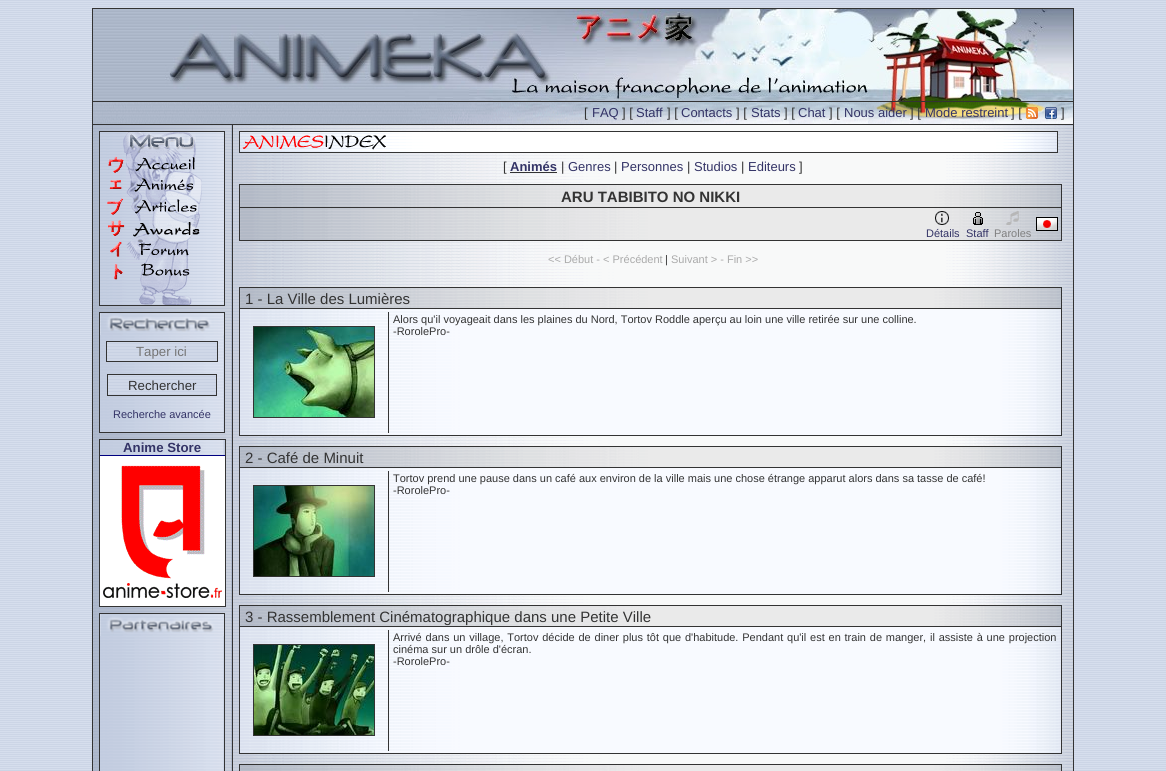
import math
import cairocffi as cairo

surface = cairo.ImageSurface(cairo.FORMAT_RGB24, 1166, 771)
ctx = cairo.Context(surface)
options = cairo.FontOptions()
options.set_hint_metrics(cairo.HINT_METRICS_OFF)
options.set_hint_style(cairo.HINT_STYLE_NONE)
ctx.set_font_options(options)
ctx.set_miter_limit(4)


def rgb(r, g, b):
    ctx.set_source_rgb(r / 255, g / 255, b / 255)


def face(family, size, italic, bold):
    ctx.select_font_face(family, cairo.FONT_SLANT_ITALIC if italic else cairo.FONT_SLANT_NORMAL, cairo.FONT_WEIGHT_BOLD if bold else cairo.FONT_WEIGHT_NORMAL)
    ctx.set_font_size(size)


def label(x, y, s):
    ctx.move_to(x, y)
    ctx.show_text(s)


def tracked(x, y, s, letter, word):
    ctx.move_to(x, y)
    for ch in s:
        ctx.show_text(ch)
        ctx.rel_move_to(letter + word * (ch == ' '), 0)


def rect(x, y, w, h):
    ctx.rectangle(x, y, w, h)
    ctx.fill()


def image(path, x, y, w, h):
    ctx.save()
    ctx.set_source_surface(cairo.ImageSurface.create_from_png(path), x, y)
    ctx.rectangle(x, y, w, h)
    ctx.fill()
    ctx.restore()


rgb(255, 255, 255)
ctx.paint()
image('image0.png', 0, 0, 1166, 771)
rgb(51, 51, 51)
rect(92, 8, 982, 1)
rect(1073, 8, 1, 763)
rect(92, 8, 1, 763)
image('image1.png', 93, 9, 980, 92)
image('image2.png', 93, 102, 980, 22)
rect(93, 101, 980, 1)
rect(93, 124, 980, 1)
face('Liberation Sans', 13, 0, 0)
label(584, 117, '[')
rgb(51, 51, 102)
label(592, 117, 'FAQ')
rgb(51, 51, 51)
label(622, 117, '] [')
rgb(51, 51, 102)
label(636, 117, 'Staff')
rgb(51, 51, 51)
label(667, 117, '] [')
rgb(51, 51, 102)
label(681, 117, 'Contacts')
rgb(51, 51, 51)
label(736, 117, '] [')
rgb(51, 51, 102)
label(751, 117, 'Stats')
rgb(51, 51, 51)
label(784, 117, '] [')
rgb(51, 51, 102)
label(798, 117, 'Chat')
rgb(51, 51, 51)
label(829, 117, '] [')
rgb(51, 51, 102)
label(844, 117, 'Nous aider')
rgb(51, 51, 51)
label(910, 117, '] [')
rgb(51, 51, 102)
label(925, 117, 'Mode restreint')
rgb(51, 51, 51)
label(1011, 117, '] [')
image('image3.png', 1026, 107, 12, 12)
image('image4.png', 1045, 107, 12, 12)
label(1061, 117, ']')
image('image5.png', 93, 125, 139, 646)
rect(232, 125, 1, 646)
rect(99, 131, 126, 1)
rect(224, 131, 1, 175)
rect(99, 305, 126, 1)
rect(99, 131, 1, 175)
image('image6.png', 100, 132, 124, 173)
image('image7.png', 123, 135, 3, 18)
image('image8.png', 126, 132, 70, 21)
image('image9.png', 108, 156, 16, 17)
image('image10.png', 126, 153, 70, 22)
image('image11.png', 109, 180, 14, 9)
image('image12.png', 126, 175, 76, 22)
image('image13.png', 107, 198, 17, 17)
image('image14.png', 131, 197, 71, 22)
image('image15.png', 108, 220, 17, 16)
image('image16.png', 132, 219, 68, 22)
image('image17.png', 110, 241, 12, 16)
image('image18.png', 126, 241, 63, 22)
image('image19.png', 114, 264, 9, 16)
image('image20.png', 140, 263, 50, 22)
image('image21.png', 139, 285, 53, 20)
image('image22.png', 100, 335, 124, 97)
rect(99, 312, 126, 1)
rect(224, 312, 1, 121)
rect(99, 432, 126, 1)
rect(99, 312, 1, 121)
image('image23.png', 100, 313, 124, 22)
image('image24.png', 107, 342, 110, 19)
ctx.rectangle(106.5, 341.5, 111, 20)
ctx.set_line_width(1)
ctx.stroke()
face('Liberation Sans', 13.25, 0, 0)
rgb(117, 117, 117)
label(136, 356, 'Taper ici')
image('image25.png', 108, 375, 108, 20)
ctx.rectangle(107.5, 374.5, 109, 21)
rgb(51, 51, 51)
ctx.stroke()
label(128, 390, 'Rechercher')
face('Liberation Sans', 11, 0, 0)
rgb(51, 51, 102)
label(113, 418, 'Recherche avancée')
image('image26.png', 100, 440, 125, 15)
rgb(51, 51, 51)
rect(99, 439, 127, 1)
rect(225, 439, 1, 168)
rect(99, 606, 127, 1)
rect(99, 439, 1, 168)
face('Liberation Sans', 13.25, 0, 1)
rgb(51, 51, 102)
label(123, 452, 'Anime Store')
rgb(0, 0, 128)
rect(100, 455, 125, 1)
image('image27.png', 100, 456, 125, 150)
image('image28.png', 100, 636, 124, 135)
rgb(51, 51, 51)
rect(99, 613, 126, 1)
rect(224, 613, 1, 158)
rect(99, 613, 1, 158)
image('image29.png', 100, 614, 124, 22)
image('image30.png', 233, 125, 840, 646)
image('image31.png', 239, 131, 819, 22)
face('Liberation Sans', 13, 0, 0)
label(503, 171, '[')
face('Liberation Sans', 13, 0, 1)
rgb(51, 51, 102)
label(510, 171, 'Animés')
rgb(51, 51, 51)
rect(510, 172, 47, 1)
face('Liberation Sans', 13, 0, 0)
label(561, 171, '|')
rgb(51, 51, 102)
label(568, 171, 'Genres')
rgb(51, 51, 51)
label(614, 171, '|')
rgb(51, 51, 102)
label(621, 171, 'Personnes')
rgb(51, 51, 51)
label(687, 171, '|')
rgb(51, 51, 102)
label(694, 171, 'Studios')
rgb(51, 51, 51)
label(741, 171, '|')
rgb(51, 51, 102)
label(748, 171, 'Editeurs')
rgb(51, 51, 51)
label(799, 171, ']')
rect(239, 184, 823, 1)
rect(1061, 184, 1, 57)
rect(239, 240, 823, 1)
rect(239, 184, 1, 57)
image('image32.png', 240, 185, 821, 22)
face('Liberation Sans', 15, 0, 1)
label(561, 202, 'ARU TABIBITO NO NIKKI')
image('image33.png', 240, 208, 821, 32)
rect(239, 207, 823, 1)
image('image34.png', 1036, 217, 22, 14)
image('image35.png', 935, 211, 14, 14)
face('Liberation Sans', 11, 0, 0)
rgb(51, 51, 102)
label(926, 237, 'Détails')
image('image36.png', 973, 212, 10, 13)
label(966, 237, 'Staff')
image('image37.png', 1006, 211, 13, 14)
rgb(128, 128, 128)
label(994, 237, 'Paroles')
rgb(170, 170, 170)
label(548, 263, '<< Début - < Précédent')
rgb(51, 51, 51)
label(665, 263, '|')
rgb(170, 170, 170)
label(671, 263, 'Suivant > - Fin >>')
image('image38.png', 240, 309, 821, 126)
rgb(51, 51, 51)
rect(239, 287, 823, 1)
rect(1061, 287, 1, 149)
rect(239, 435, 823, 1)
rect(239, 287, 1, 149)
image('image39.png', 240, 288, 821, 20)
rect(239, 308, 823, 1)
face('Liberation Sans', 15, 0, 0)
label(245, 304, '1 - La Ville des Lumières')
rect(388, 312, 1, 121)
ctx.rectangle(253.5, 326.5, 121, 91)
ctx.stroke()
image('image40.png', 254, 327, 120, 90)
face('Liberation Sans', 11, 0, 0)
label(393, 323, 'Alors qu\'il voyageait dans les plaines du Nord, Tortov Roddle aperçu au loin une ville retirée sur une colline.')
label(393, 335, '-RorolePro-')
image('image38.png', 240, 468, 821, 126)
rect(239, 446, 823, 1)
rect(1061, 446, 1, 149)
rect(239, 594, 823, 1)
rect(239, 446, 1, 149)
image('image39.png', 240, 447, 821, 20)
rect(239, 467, 823, 1)
face('Liberation Sans', 15, 0, 0)
label(245, 463, '2 - Café de Minuit')
rect(388, 471, 1, 121)
ctx.rectangle(253.5, 485.5, 121, 91)
ctx.stroke()
image('image41.png', 254, 486, 120, 90)
face('Liberation Sans', 11, 0, 0)
label(393, 482, 'Tortov prend une pause dans un café aux environ de la ville mais une chose étrange apparut alors dans sa tasse de café!')
label(393, 494, '-RorolePro-')
image('image38.png', 240, 627, 821, 126)
rect(239, 605, 823, 1)
rect(1061, 605, 1, 149)
rect(239, 753, 823, 1)
rect(239, 605, 1, 149)
image('image39.png', 240, 606, 821, 20)
rect(239, 626, 823, 1)
face('Liberation Sans', 15, 0, 0)
label(245, 622, '3 - Rassemblement Cinématographique dans une Petite Ville')
rect(388, 630, 1, 121)
ctx.rectangle(253.5, 644.5, 121, 91)
ctx.stroke()
image('image42.png', 254, 645, 120, 90)
face('Liberation Sans', 11, 0, 0)
tracked(393, 641, 'Arrivé dans un village, Tortov décide de diner plus tôt que d\'habitude. Pendant qu\'il est en train de manger, il assiste à une projection', 0, 0.75)
label(393, 653, 'cinéma sur un drôle d\'écran.')
label(393, 665, '-RorolePro-')
rect(239, 764, 823, 1)
rect(1061, 764, 1, 7)
rect(239, 764, 1, 7)
image('image43.png', 240, 765, 821, 6)
surface.write_to_png('render.png')
